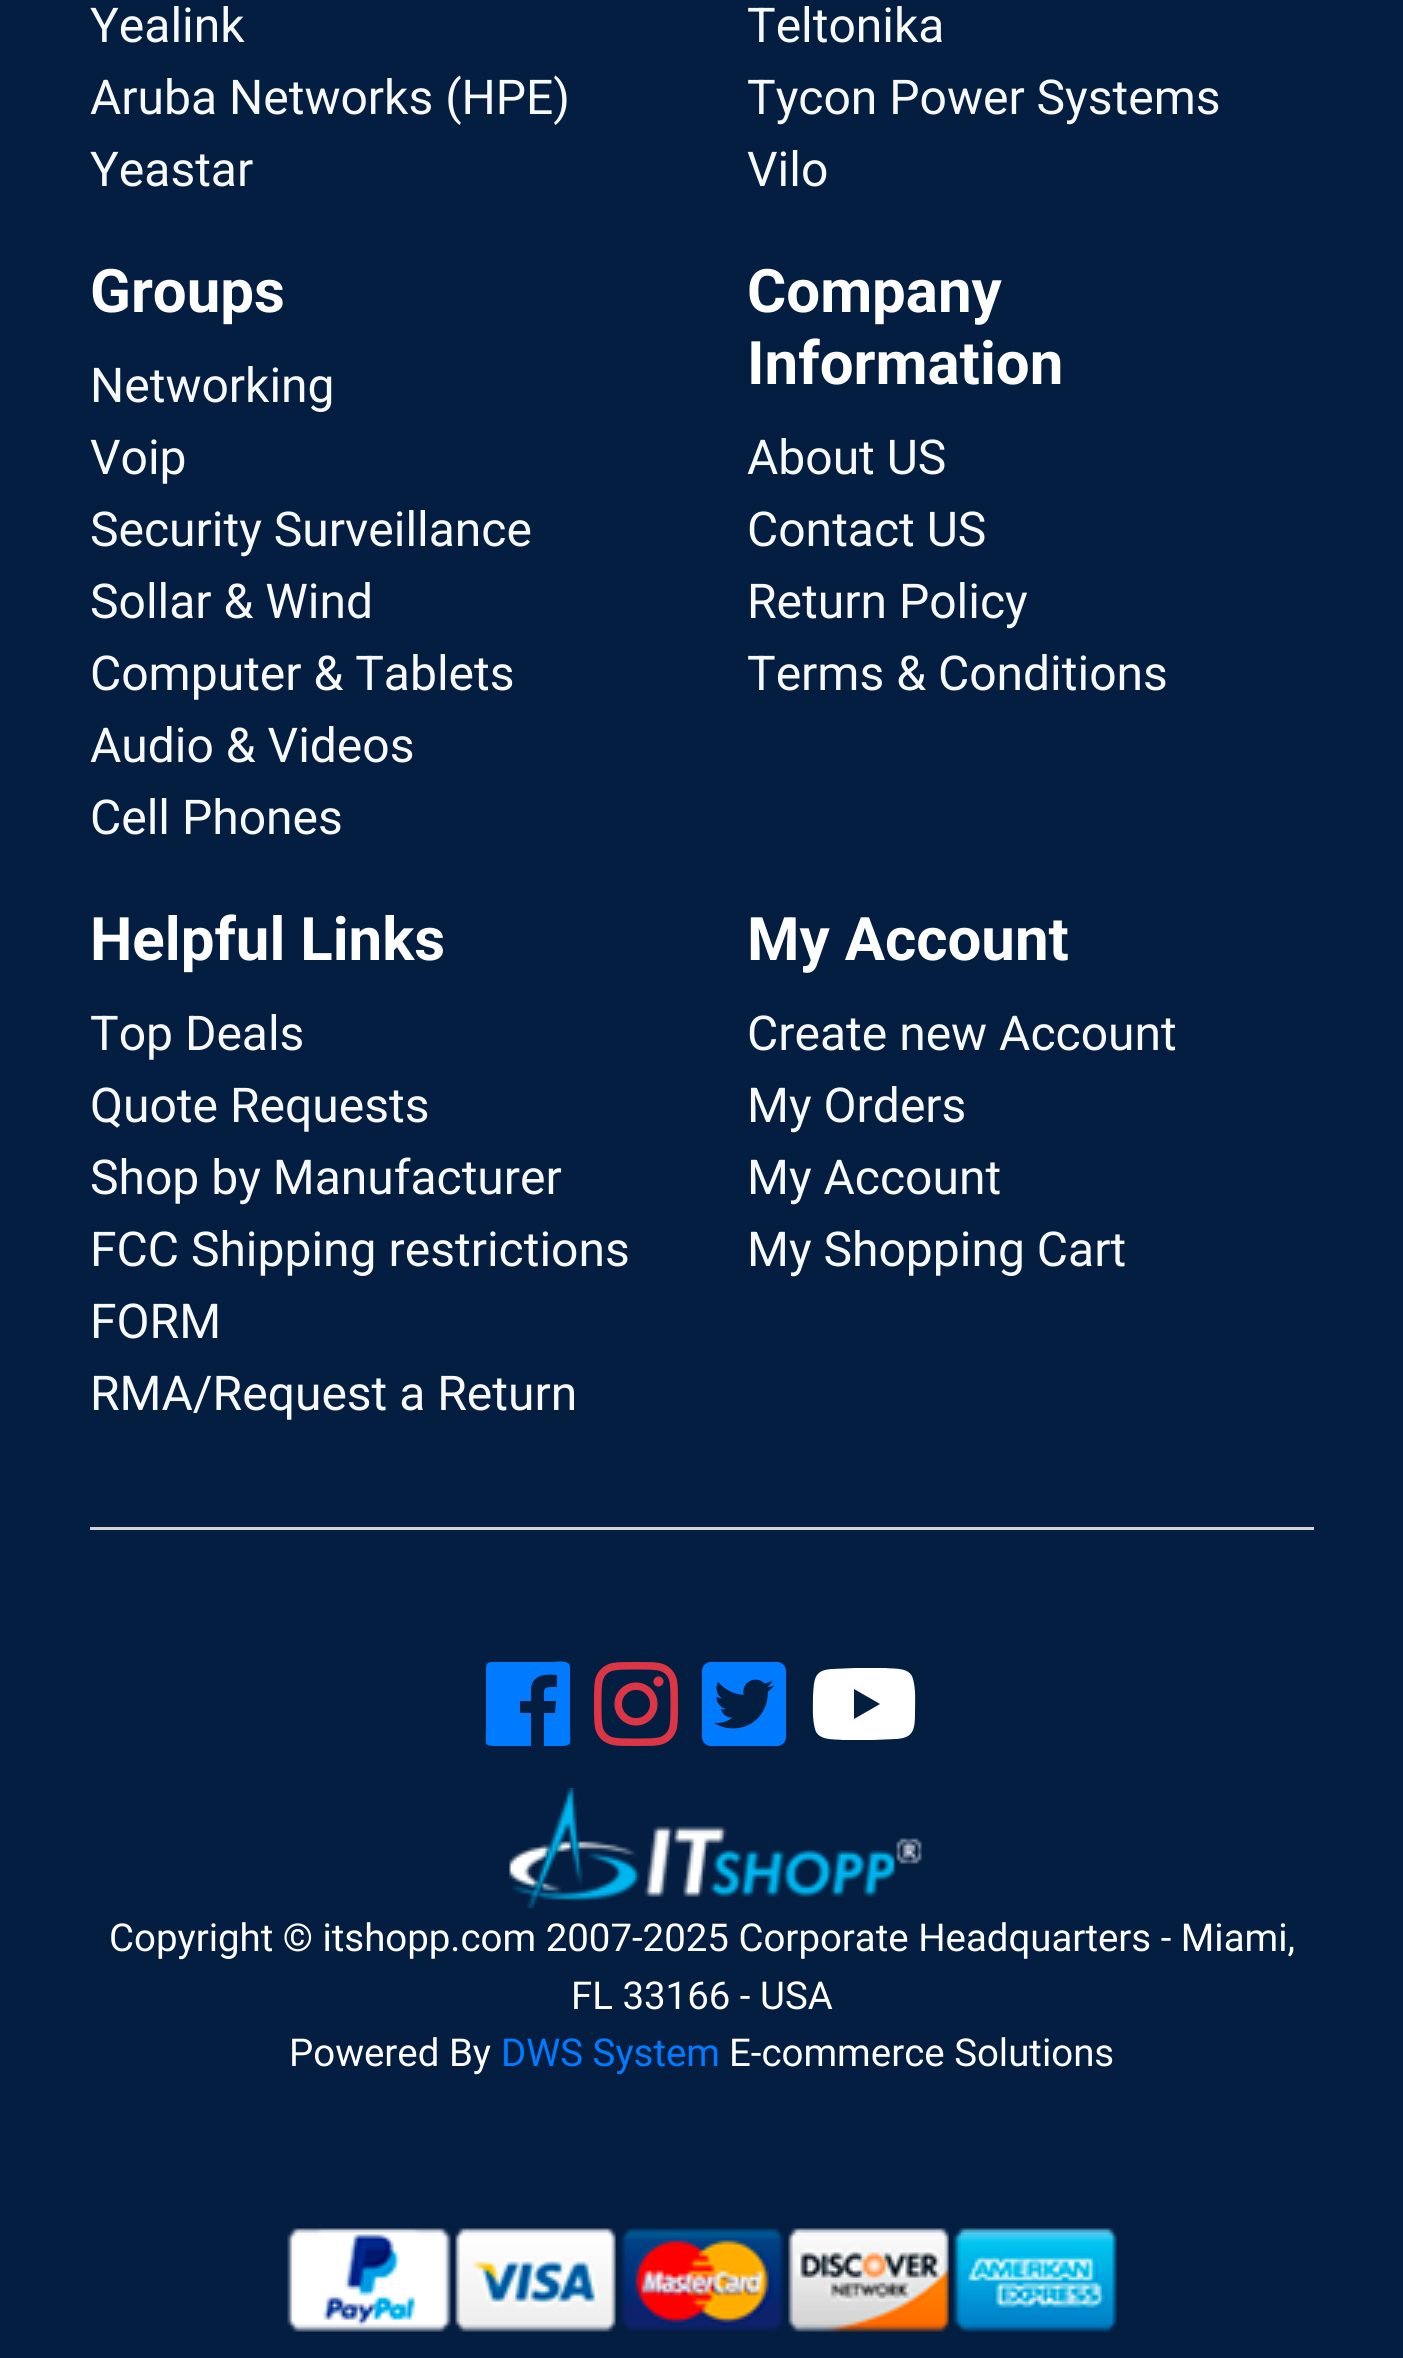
import math
import cairocffi as cairo

surface = cairo.ImageSurface(cairo.FORMAT_RGB24, 1403, 2358)
ctx = cairo.Context(surface)
options = cairo.FontOptions()
options.set_hint_metrics(cairo.HINT_METRICS_OFF)
options.set_hint_style(cairo.HINT_STYLE_NONE)
ctx.set_font_options(options)
ctx.set_miter_limit(4)


def rgb(r, g, b):
    ctx.set_source_rgb(r / 255, g / 255, b / 255)


def face(family, size, italic, bold):
    ctx.select_font_face(family, cairo.FONT_SLANT_ITALIC if italic else cairo.FONT_SLANT_NORMAL, cairo.FONT_WEIGHT_BOLD if bold else cairo.FONT_WEIGHT_NORMAL)
    ctx.set_font_size(size)


def label(x, y, s):
    ctx.move_to(x, y)
    ctx.show_text(s)


def rect(x, y, w, h):
    ctx.rectangle(x, y, w, h)
    ctx.fill()


def image(path, x, y, w, h):
    ctx.save()
    ctx.set_source_surface(cairo.ImageSurface.create_from_png(path), x, y)
    ctx.rectangle(x, y, w, h)
    ctx.fill()
    ctx.restore()


rgb(4, 30, 66)
ctx.paint()
face('Roboto', 48, 0, 0)
rgb(248, 249, 250)
label(90, 42, 'Yealink')
label(90, 114, 'Aruba Networks (HPE)')
label(90, 186, 'Yeastar')
label(747, 42, 'Teltonika')
label(747, 114, 'Tycon Power Systems')
label(747, 186, 'Vilo')
face('Roboto', 60, 0, 1)
rgb(255, 255, 255)
label(90, 312, 'Groups')
face('Roboto', 48, 0, 0)
rgb(248, 249, 250)
label(90, 402, 'Networking')
label(90, 474, 'Voip')
label(90, 546, 'Security Surveillance')
label(90, 618, 'Sollar & Wind')
label(90, 690, 'Computer & Tablets')
label(90, 762, 'Audio & Videos')
label(90, 834, 'Cell Phones')
face('Roboto', 60, 0, 1)
rgb(255, 255, 255)
label(747, 312, 'Company')
label(747, 384, 'Information')
face('Roboto', 48, 0, 0)
rgb(248, 249, 250)
label(747, 474, 'About US')
label(747, 546, 'Contact US')
label(747, 618, 'Return Policy')
label(747, 690, 'Terms & Conditions')
face('Roboto', 60, 0, 1)
rgb(255, 255, 255)
label(90, 960, 'Helpful Links')
face('Roboto', 48, 0, 0)
rgb(248, 249, 250)
label(90, 1050, 'Top Deals')
label(90, 1122, 'Quote Requests')
label(90, 1194, 'Shop by Manufacturer')
label(90, 1266, 'FCC Shipping restrictions')
label(90, 1338, 'FORM')
label(90, 1410, 'RMA/Request a Return')
face('Roboto', 60, 0, 1)
rgb(255, 255, 255)
label(747, 960, 'My Account')
face('Roboto', 48, 0, 0)
rgb(248, 249, 250)
label(747, 1050, 'Create new Account')
label(747, 1122, 'My Orders')
label(747, 1194, 'My Account')
label(747, 1266, 'My Shopping Cart')
rgb(211, 211, 211)
rect(90, 1527, 1224, 3)
rgb(0, 123, 255)
ctx.new_path()
ctx.move_to(570, 1667)
ctx.line_to(570, 1729)
ctx.curve_to(570, 1741, 573, 1746, 562, 1746)
ctx.line_to(544, 1746)
ctx.line_to(544, 1713)
ctx.line_to(555, 1713)
ctx.line_to(556, 1701)
ctx.line_to(544, 1701)
ctx.curve_to(544, 1687, 542, 1687, 557, 1687)
ctx.line_to(557, 1675)
ctx.curve_to(546, 1674, 533, 1674, 531, 1688)
ctx.line_to(531, 1701)
ctx.line_to(520, 1701)
ctx.line_to(520, 1713)
ctx.line_to(531, 1713)
ctx.line_to(531, 1746)
ctx.line_to(497, 1746)
ctx.curve_to(483, 1746, 486, 1745, 486, 1729)
ctx.line_to(486, 1679)
ctx.curve_to(486, 1660, 484, 1662, 503, 1662)
ctx.line_to(553, 1662)
ctx.curve_to(555, 1662, 570, 1659, 570, 1667)
ctx.close_path()
ctx.fill()
image('image0.png', 594, 1662, 84, 84)
image('image1.png', 702, 1662, 84, 84)
rgb(255, 255, 255)
ctx.new_path()
ctx.move_to(913, 1679)
ctx.curve_to(910, 1667, 895, 1669, 885, 1668)
ctx.line_to(855, 1668)
ctx.line_to(832, 1669)
ctx.curve_to(814, 1670, 814, 1679, 813, 1696)
ctx.curve_to(813, 1707, 812, 1718, 815, 1729)
ctx.curve_to(818, 1741, 834, 1739, 843, 1740)
ctx.line_to(873, 1740)
ctx.line_to(896, 1739)
ctx.curve_to(914, 1738, 915, 1729, 915, 1712)
ctx.curve_to(915, 1701, 916, 1690, 913, 1679)
ctx.close_path()
ctx.move_to(854, 1719)
ctx.line_to(854, 1689)
ctx.line_to(880, 1704)
ctx.close_path()
ctx.fill()
image('image2.png', 509, 1788, 413, 120)
face('Roboto', 38.4, 0, 0)
label(109, 1951, 'Copyright © itshopp.com 2007-2025 Corporate Headquarters - Miami,')
label(571, 2009, 'FL 33166 - USA')
label(289, 2066, 'Powered By')
rgb(0, 123, 255)
label(501, 2066, 'DWS System')
rgb(255, 255, 255)
label(729, 2066, 'E-commerce Solutions')
image('image3.png', 287, 2228, 830, 104)
surface.write_to_png('render.png')
